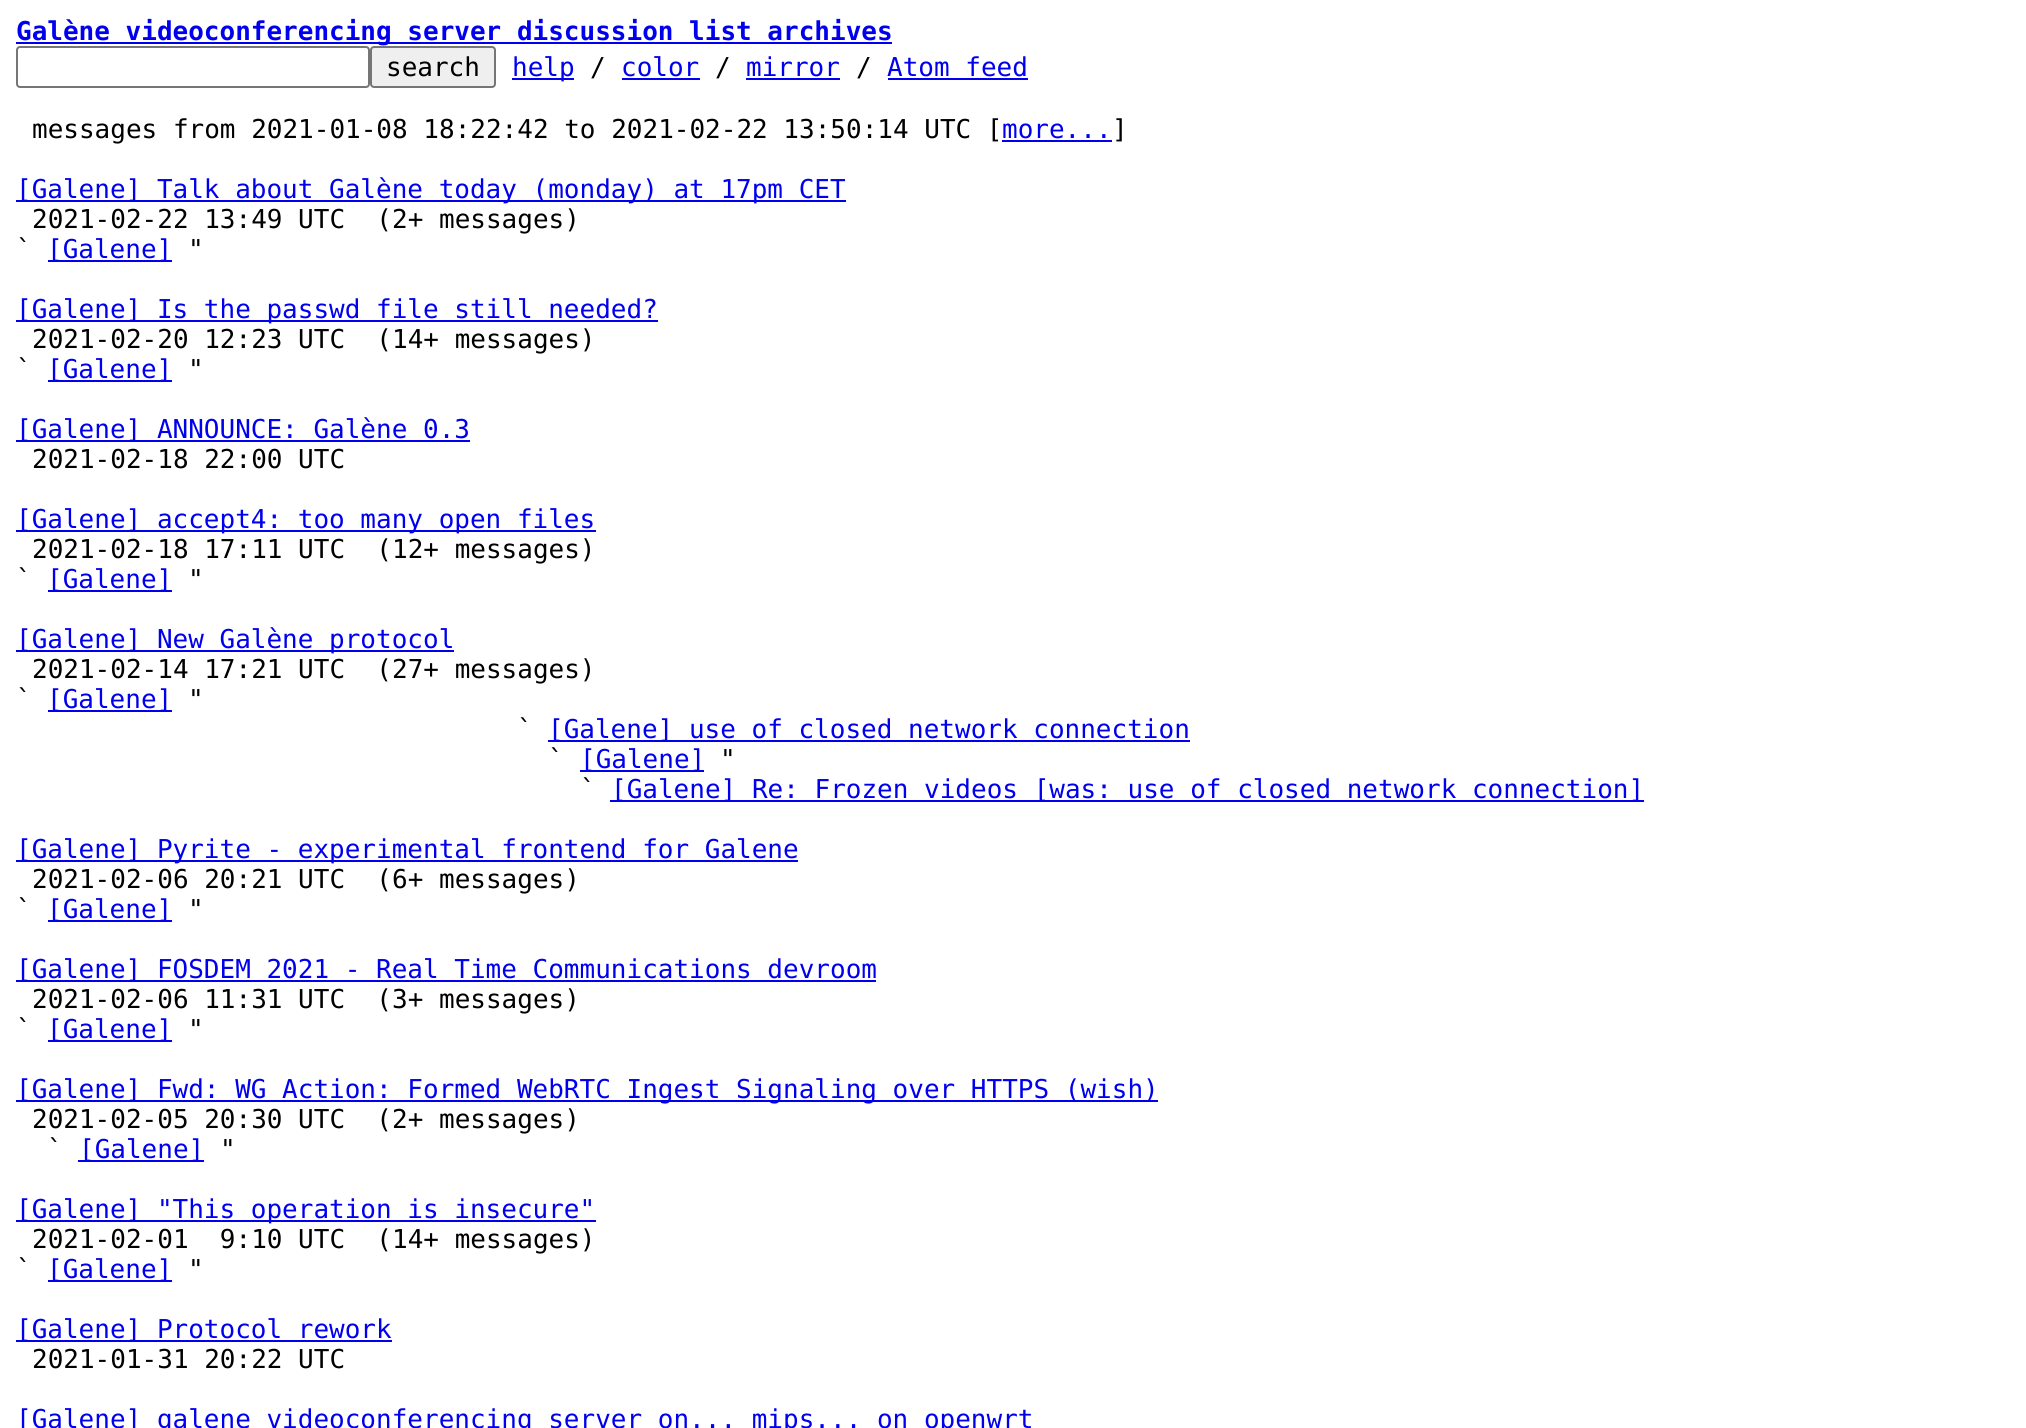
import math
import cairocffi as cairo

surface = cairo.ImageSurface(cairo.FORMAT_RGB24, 2026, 1428)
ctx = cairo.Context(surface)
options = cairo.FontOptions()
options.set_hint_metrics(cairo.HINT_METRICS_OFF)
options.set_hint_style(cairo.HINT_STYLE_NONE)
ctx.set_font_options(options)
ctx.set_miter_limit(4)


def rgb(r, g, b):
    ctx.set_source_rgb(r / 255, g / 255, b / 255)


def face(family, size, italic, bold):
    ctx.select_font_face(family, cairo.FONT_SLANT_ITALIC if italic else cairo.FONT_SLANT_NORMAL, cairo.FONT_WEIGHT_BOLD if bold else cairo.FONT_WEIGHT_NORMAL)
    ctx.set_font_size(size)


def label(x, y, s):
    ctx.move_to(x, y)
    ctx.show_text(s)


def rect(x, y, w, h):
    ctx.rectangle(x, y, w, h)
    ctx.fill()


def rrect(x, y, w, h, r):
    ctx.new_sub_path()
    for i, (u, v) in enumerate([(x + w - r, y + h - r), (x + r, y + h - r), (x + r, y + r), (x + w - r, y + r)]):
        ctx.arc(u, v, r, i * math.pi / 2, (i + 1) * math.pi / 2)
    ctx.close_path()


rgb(255, 255, 255)
ctx.paint()
rgb(0, 0, 238)
rect(16, 42, 876, 2)
face('DejaVu Sans Mono', 26, 0, 1)
label(16, 40, 'Galène videoconferencing server discussion list archives')
rrect(17, 47, 352, 40, 3)
rgb(118, 118, 118)
ctx.stroke()
rgb(239, 239, 239)
rrect(371, 47, 124, 40, 3)
ctx.fill_preserve()
rgb(118, 118, 118)
ctx.stroke()
face('DejaVu Sans Mono', 26, 0, 0)
rgb(0, 0, 0)
label(386, 76, 'search')
rgb(0, 0, 238)
rect(512, 78, 62, 2)
label(512, 76, 'help')
rgb(0, 0, 0)
label(590, 76, '/')
rgb(0, 0, 238)
label(621, 76, 'color')
rect(622, 78, 78, 2)
rgb(0, 0, 0)
label(715, 76, '/')
rgb(0, 0, 238)
label(746, 76, 'mirror')
rect(746, 78, 94, 2)
rgb(0, 0, 0)
label(856, 76, '/')
rgb(0, 0, 238)
label(887, 76, 'Atom feed')
rect(888, 78, 140, 2)
rgb(0, 0, 0)
label(32, 138, 'messages from 2021-01-08 18:22:42 to 2021-02-22 13:50:14 UTC [')
rgb(0, 0, 238)
label(1002, 138, 'more...')
rect(1002, 140, 110, 2)
rgb(0, 0, 0)
label(1112, 138, ']')
rgb(0, 0, 238)
rect(16, 200, 830, 2)
label(16, 198, '[Galene] Talk about Galène today (monday) at 17pm CET')
rgb(0, 0, 0)
label(32, 228, '2021-02-22 13:49 UTC  (2+ messages)')
label(16, 258, '`')
rgb(0, 0, 238)
rect(48, 260, 124, 2)
label(47, 258, '[Galene]')
rgb(0, 0, 0)
label(188, 258, '"')
rgb(0, 0, 238)
rect(16, 320, 642, 2)
label(16, 318, '[Galene] Is the passwd file still needed?')
rgb(0, 0, 0)
label(32, 348, '2021-02-20 12:23 UTC  (14+ messages)')
label(16, 378, '`')
rgb(0, 0, 238)
rect(48, 380, 124, 2)
label(47, 378, '[Galene]')
rgb(0, 0, 0)
label(188, 378, '"')
rgb(0, 0, 238)
rect(16, 440, 454, 2)
label(16, 438, '[Galene] ANNOUNCE: Galène 0.3')
rgb(0, 0, 0)
label(32, 468, '2021-02-18 22:00 UTC')
rgb(0, 0, 238)
rect(16, 530, 580, 2)
label(16, 528, '[Galene] accept4: too many open files')
rgb(0, 0, 0)
label(32, 558, '2021-02-18 17:11 UTC  (12+ messages)')
label(16, 588, '`')
rgb(0, 0, 238)
rect(48, 590, 124, 2)
label(47, 588, '[Galene]')
rgb(0, 0, 0)
label(188, 588, '"')
rgb(0, 0, 238)
rect(16, 650, 438, 2)
label(16, 648, '[Galene] New Galène protocol')
rgb(0, 0, 0)
label(32, 678, '2021-02-14 17:21 UTC  (27+ messages)')
label(16, 708, '`')
rgb(0, 0, 238)
rect(48, 710, 124, 2)
label(47, 708, '[Galene]')
rgb(0, 0, 0)
label(188, 708, '"')
label(517, 738, '`')
rgb(0, 0, 238)
rect(548, 740, 642, 2)
label(548, 738, '[Galene] use of closed network connection')
rgb(0, 0, 0)
label(548, 768, '`')
rgb(0, 0, 238)
rect(580, 770, 124, 2)
label(580, 768, '[Galene]')
rgb(0, 0, 0)
label(720, 768, '"')
label(580, 798, '`')
rgb(0, 0, 238)
rect(610, 800, 1034, 2)
label(611, 798, '[Galene] Re: Frozen videos [was: use of closed network connection]')
rect(16, 860, 782, 2)
label(16, 858, '[Galene] Pyrite - experimental frontend for Galene')
rgb(0, 0, 0)
label(32, 888, '2021-02-06 20:21 UTC  (6+ messages)')
label(16, 918, '`')
rgb(0, 0, 238)
rect(48, 920, 124, 2)
label(47, 918, '[Galene]')
rgb(0, 0, 0)
label(188, 918, '"')
rgb(0, 0, 238)
rect(16, 980, 860, 2)
label(16, 978, '[Galene] FOSDEM 2021 - Real Time Communications devroom')
rgb(0, 0, 0)
label(32, 1008, '2021-02-06 11:31 UTC  (3+ messages)')
label(16, 1038, '`')
rgb(0, 0, 238)
rect(48, 1040, 124, 2)
label(47, 1038, '[Galene]')
rgb(0, 0, 0)
label(188, 1038, '"')
rgb(0, 0, 238)
rect(16, 1100, 1142, 2)
label(16, 1098, '[Galene] Fwd: WG Action: Formed WebRTC Ingest Signaling over HTTPS (wish)')
rgb(0, 0, 0)
label(32, 1128, '2021-02-05 20:30 UTC  (2+ messages)')
label(47, 1158, '`')
rgb(0, 0, 238)
rect(78, 1160, 126, 2)
label(79, 1158, '[Galene]')
rgb(0, 0, 0)
label(220, 1158, '"')
rgb(0, 0, 238)
rect(16, 1220, 580, 2)
label(16, 1218, '[Galene] "This operation is insecure"')
rgb(0, 0, 0)
label(32, 1248, '2021-02-01  9:10 UTC  (14+ messages)')
label(16, 1278, '`')
rgb(0, 0, 238)
rect(48, 1280, 124, 2)
label(47, 1278, '[Galene]')
rgb(0, 0, 0)
label(188, 1278, '"')
rgb(0, 0, 238)
rect(16, 1340, 376, 2)
label(16, 1338, '[Galene] Protocol rework')
rgb(0, 0, 0)
label(32, 1368, '2021-01-31 20:22 UTC')
rgb(0, 0, 238)
label(16, 1428, '[Galene] galene videoconferencing server on... mips... on openwrt')
surface.write_to_png('render.png')
